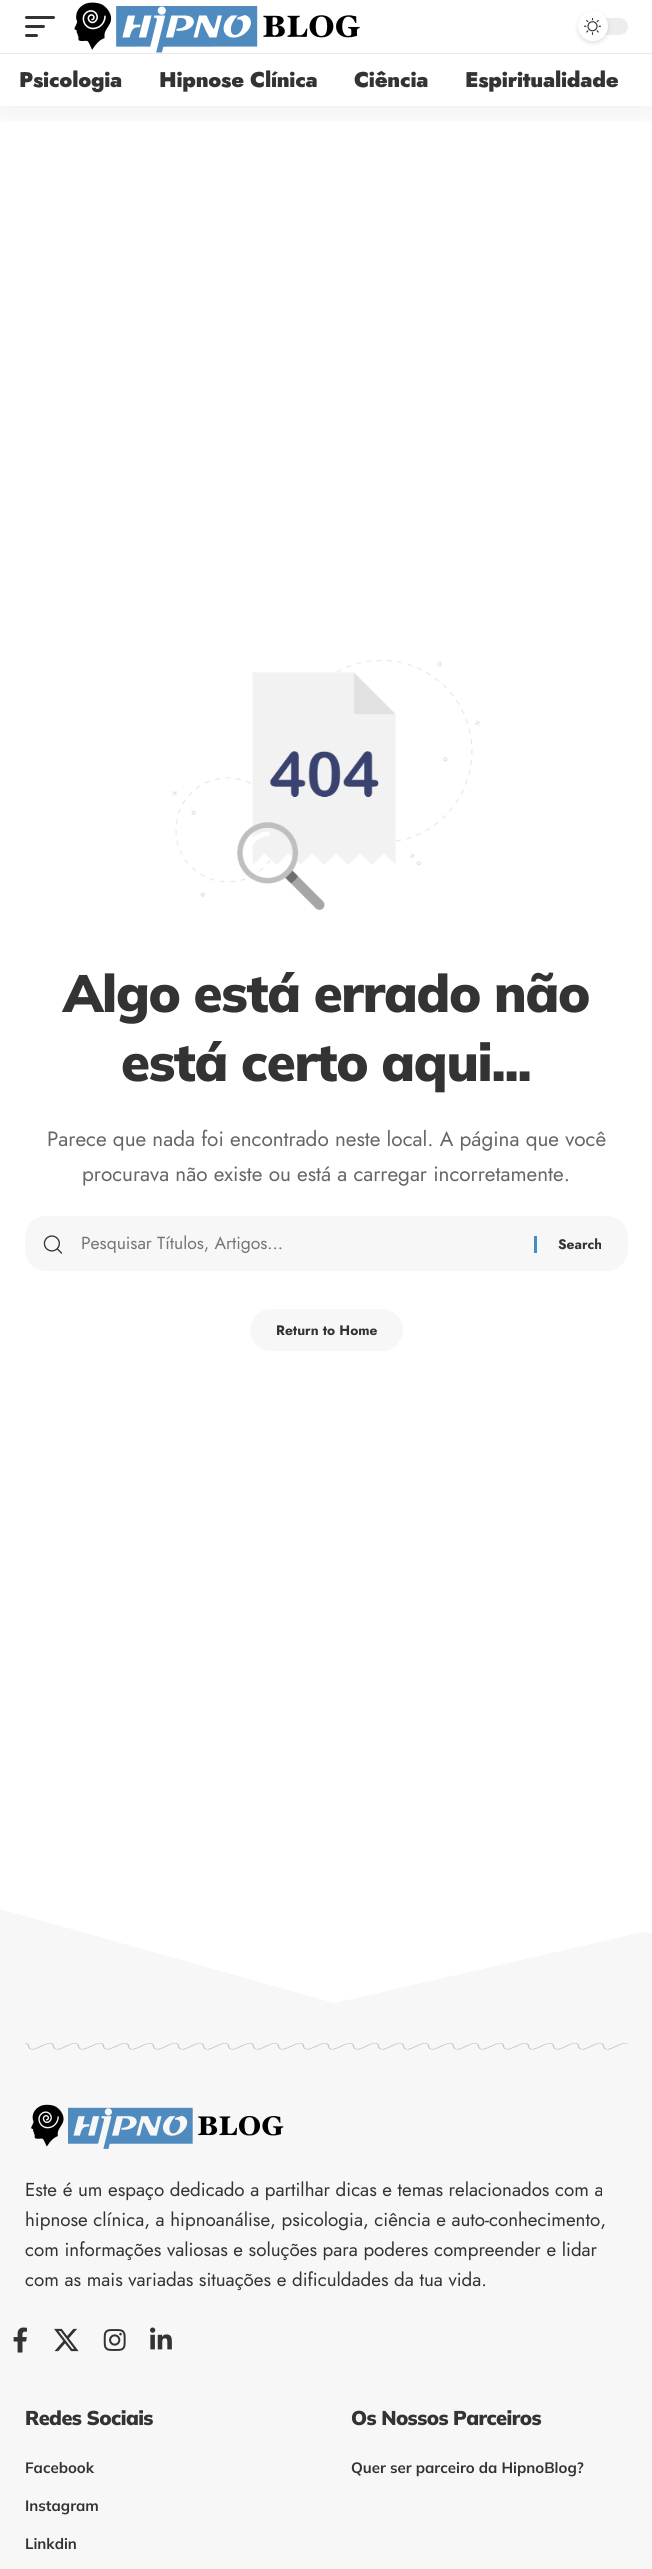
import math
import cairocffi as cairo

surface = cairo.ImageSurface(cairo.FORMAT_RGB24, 652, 2569)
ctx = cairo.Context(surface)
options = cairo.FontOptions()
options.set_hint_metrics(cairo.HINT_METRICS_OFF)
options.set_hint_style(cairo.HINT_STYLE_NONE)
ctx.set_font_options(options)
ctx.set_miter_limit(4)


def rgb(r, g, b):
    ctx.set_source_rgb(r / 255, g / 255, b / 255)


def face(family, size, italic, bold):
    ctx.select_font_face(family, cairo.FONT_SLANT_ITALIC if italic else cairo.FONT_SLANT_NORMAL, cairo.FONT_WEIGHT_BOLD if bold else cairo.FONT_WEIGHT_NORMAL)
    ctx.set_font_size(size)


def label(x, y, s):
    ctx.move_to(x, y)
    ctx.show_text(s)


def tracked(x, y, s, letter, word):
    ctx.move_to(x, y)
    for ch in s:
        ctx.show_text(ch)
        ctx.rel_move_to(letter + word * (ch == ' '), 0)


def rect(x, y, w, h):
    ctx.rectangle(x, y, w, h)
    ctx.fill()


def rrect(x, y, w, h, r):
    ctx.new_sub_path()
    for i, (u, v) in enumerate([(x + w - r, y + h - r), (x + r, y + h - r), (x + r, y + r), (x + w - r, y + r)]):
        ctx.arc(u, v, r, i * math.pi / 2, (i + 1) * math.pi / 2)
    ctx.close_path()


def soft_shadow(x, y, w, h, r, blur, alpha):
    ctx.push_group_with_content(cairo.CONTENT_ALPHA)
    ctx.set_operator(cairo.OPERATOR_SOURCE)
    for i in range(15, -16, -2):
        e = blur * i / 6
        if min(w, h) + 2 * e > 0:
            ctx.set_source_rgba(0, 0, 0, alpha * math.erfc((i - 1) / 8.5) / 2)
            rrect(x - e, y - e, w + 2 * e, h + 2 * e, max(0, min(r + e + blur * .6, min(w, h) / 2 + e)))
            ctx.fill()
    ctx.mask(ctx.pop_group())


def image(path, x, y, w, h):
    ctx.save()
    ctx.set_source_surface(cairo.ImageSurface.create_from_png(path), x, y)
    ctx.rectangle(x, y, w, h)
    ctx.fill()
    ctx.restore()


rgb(255, 255, 255)
ctx.paint()
ctx.save()
ctx.rectangle(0, 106, 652, 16)
ctx.clip()
rgb(0, 0, 0)
soft_shadow(0, 5, 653, 106, 0, 19, 0.07)
ctx.restore()
rgb(51, 51, 51)
rrect(25, 16, 30, 3, 1.5)
ctx.fill()
rrect(25, 25, 20, 3, 1.5)
ctx.fill()
rrect(25, 34, 13, 3, 1.5)
ctx.fill()
image('image0.png', 74, 2, 286, 51)
rgb(237, 237, 237)
rrect(578, 18, 50, 17, 8.5)
ctx.fill()
rgb(0, 0, 0)
soft_shadow(578, 13, 30, 30, 15, 2.5, 0.12)
rgb(255, 255, 255)
ctx.arc(593, 26, 15, 0, 2 * math.pi)
ctx.fill()
image('image1.png', 584, 18, 17, 17)
rgb(234, 234, 234)
rect(0, 53, 652, 1)
face('Jost Black', 21.25, 0, 0)
rgb(51, 51, 51)
tracked(19, 87, 'Psicologia', -0.25, 0)
tracked(159, 87, 'Hipnose Clínica', -0.25, 0)
tracked(354, 87, 'Ciência', -0.25, 0)
tracked(465, 87, 'Espiritualidade', -0.25, 0)
image('image2.png', 172, 660, 308, 250)
face('Mulish Black', 52.5, 0, 0)
tracked(63, 1012, 'Algo está errado não', -1.25, 0)
tracked(121, 1081, 'está certo aqui...', -1.25, 0)
face('Jost', 20.7, 0, 0)
rgb(102, 102, 102)
label(47, 1146, 'Parece que nada foi encontrado neste local. A página que você')
label(82, 1181, 'procurava não existe ou está a carregar incorretamente.')
rgb(247, 247, 247)
rrect(25, 1216, 603, 55, 21)
ctx.fill()
image('image3.png', 43, 1235, 20, 19)
face('Jost', 17.5, 0, 0)
rgb(117, 117, 117)
label(81, 1249, 'Pesquisar Títulos, Artigos...')
rgb(72, 140, 191)
rect(534, 1236, 3, 17)
face('Jost', 13.75, 0, 1)
rgb(51, 51, 51)
label(558, 1249, 'Search')
rgb(247, 247, 247)
rrect(250, 1309, 153, 42, 21)
ctx.fill()
rgb(51, 51, 51)
label(276, 1335, 'Return to Home')
rgb(247, 247, 247)
rect(0, 1909, 652, 660)
rgb(255, 255, 255)
ctx.new_path()
ctx.move_to(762, 1949)
ctx.line_to(643, 1932)
ctx.line_to(334, 2003)
ctx.line_to(0, 1909)
ctx.line_to(0, 1905)
ctx.line_to(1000, 1905)
ctx.line_to(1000, 1909)
ctx.fill()
image('image4.png', 25, 2043, 603, 7)
image('image5.png', 31, 2104, 253, 45)
face('Jost', 18.75, 0, 0)
rgb(51, 51, 51)
label(25, 2196, 'Este é um espaço dedicado a partilhar dicas e temas relacionados com a')
label(25, 2226, 'hipnose clínica, a hipnoanálise, psicologia, ciência e auto-conhecimento,')
label(25, 2256, 'com informações valiosas e soluções para poderes compreender e lidar')
label(25, 2286, 'com as mais variadas situações e dificuldades da tua vida.')
image('image6.png', 13, 2327, 14, 26)
image('image7.png', 54, 2328, 25, 24)
image('image8.png', 103, 2329, 23, 22)
image('image9.png', 150, 2327, 22, 23)
face('Mulish Black', 20, 0, 0)
tracked(25, 2425, 'Redes Sociais', -0.6, 0)
face('Mulish', 15, 0, 1)
label(25, 2473, 'Facebook')
label(25, 2511, 'Instagram')
label(25, 2549, 'Linkdin')
face('Mulish Black', 20, 0, 0)
tracked(351, 2425, 'Os Nossos Parceiros', -0.6, 0)
face('Mulish', 15, 0, 1)
label(351, 2473, 'Quer ser parceiro da HipnoBlog?')
surface.write_to_png('render.png')
